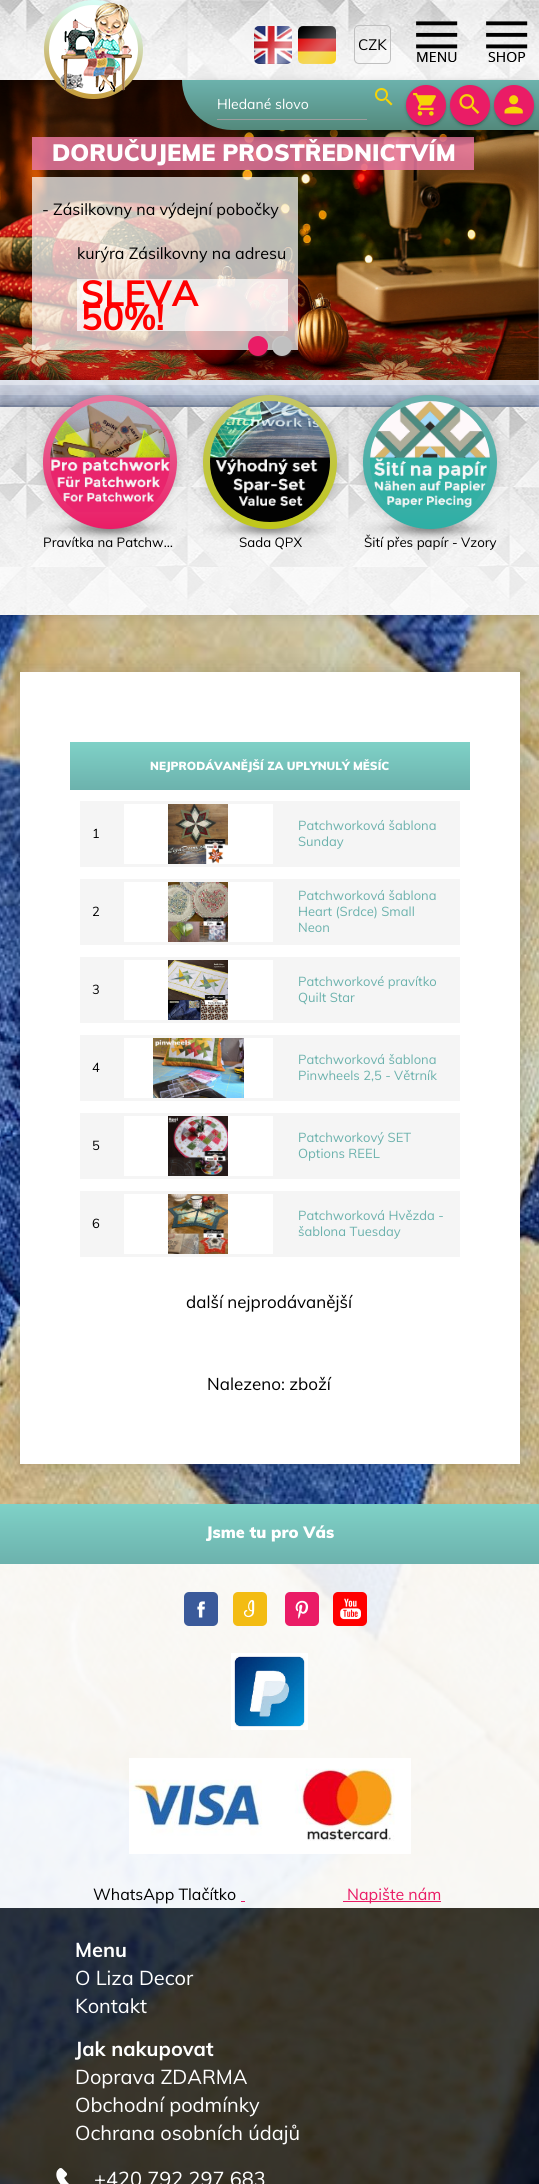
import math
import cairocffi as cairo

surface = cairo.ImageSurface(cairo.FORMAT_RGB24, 539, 2184)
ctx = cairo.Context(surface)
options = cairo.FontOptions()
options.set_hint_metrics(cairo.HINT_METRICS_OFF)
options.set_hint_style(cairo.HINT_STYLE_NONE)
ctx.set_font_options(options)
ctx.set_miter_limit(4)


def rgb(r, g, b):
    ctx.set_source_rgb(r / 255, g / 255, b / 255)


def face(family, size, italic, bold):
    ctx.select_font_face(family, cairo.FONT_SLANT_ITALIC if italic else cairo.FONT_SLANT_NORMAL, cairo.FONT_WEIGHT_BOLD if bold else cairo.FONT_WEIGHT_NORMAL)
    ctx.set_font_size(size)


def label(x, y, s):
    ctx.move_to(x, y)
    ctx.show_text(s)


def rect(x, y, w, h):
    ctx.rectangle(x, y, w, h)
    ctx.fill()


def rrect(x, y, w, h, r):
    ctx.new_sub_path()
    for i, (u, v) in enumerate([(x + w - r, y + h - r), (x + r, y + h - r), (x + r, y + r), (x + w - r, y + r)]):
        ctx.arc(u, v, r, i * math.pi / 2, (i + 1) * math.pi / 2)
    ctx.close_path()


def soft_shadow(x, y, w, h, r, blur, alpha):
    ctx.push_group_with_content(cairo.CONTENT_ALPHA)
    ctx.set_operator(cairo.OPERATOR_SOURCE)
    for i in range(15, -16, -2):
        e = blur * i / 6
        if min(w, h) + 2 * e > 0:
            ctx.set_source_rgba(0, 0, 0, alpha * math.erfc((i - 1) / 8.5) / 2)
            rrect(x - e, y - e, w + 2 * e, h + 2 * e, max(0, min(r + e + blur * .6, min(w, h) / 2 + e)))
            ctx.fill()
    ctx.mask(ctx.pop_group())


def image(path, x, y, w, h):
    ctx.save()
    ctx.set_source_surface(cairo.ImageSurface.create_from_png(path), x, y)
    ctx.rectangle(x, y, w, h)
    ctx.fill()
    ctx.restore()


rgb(255, 255, 255)
ctx.paint()
image('image0.png', 0, 130, 539, 2054)
soft_shadow(-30, 50, 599, 360, 0, 30, 1)
image('image6.png', 0, 0, 539, 80)
image('image1.png', 254, 26, 38, 38)
image('image2.png', 298, 26, 38, 38)
rrect(354.5, 25.5, 36, 38, 4.5)
rgb(192, 192, 192)
ctx.set_line_width(1)
ctx.stroke()
face('Muli', 15, 0, 0)
rgb(0, 0, 0)
label(358, 50, 'CZK')
image('image3.png', 416, 21, 42, 41)
image('image4.png', 486, 21, 42, 41)
image('image12.png', 0, 80, 539, 300)
image('image5.png', 11, 80, 177, 22)
image('image7.png', 44, 0, 99, 99)
ctx.set_source_rgba(0.91, 0.471, 0.624, 0.85)
rect(32, 137, 442, 33)
rgb(0, 0, 0)
soft_shadow(182, 85, 357, 50, 50, 5, 0.3)
gradient = cairo.LinearGradient(361, 80, 361, 130)
gradient.add_color_stop_rgba(0, 0.424, 0.698, 0.678, 1)
gradient.add_color_stop_rgba(1, 0.325, 0.537, 0.486, 1)
ctx.set_source(gradient)
ctx.new_path()
ctx.move_to(182, 80)
ctx.line_to(539, 80)
ctx.line_to(539, 130)
ctx.line_to(232, 130)
ctx.curve_to(204.5, 130, 182, 107.5, 182, 80)
ctx.close_path()
ctx.fill()
rgb(158, 158, 158)
rect(217, 119, 150, 1)
face('Muli', 14, 0, 0)
rgb(255, 255, 255)
label(217, 109, 'Hledané slovo')
image('image8.png', 375, 88, 18, 18)
rgb(0, 0, 0)
soft_shadow(408, 90, 36, 36, 18, 0.5, 0.2)
soft_shadow(406, 86, 40, 40, 20, 2.5, 0.12)
soft_shadow(406, 87, 40, 40, 20, 1, 0.14)
rgb(234, 28, 102)
ctx.arc(426, 105, 20, 0, 2 * math.pi)
ctx.fill()
image('image9.png', 413, 93, 23, 23)
rgb(0, 0, 0)
soft_shadow(452, 90, 36, 36, 18, 0.5, 0.2)
soft_shadow(450, 86, 40, 40, 20, 2.5, 0.12)
soft_shadow(450, 87, 40, 40, 20, 1, 0.14)
rgb(234, 28, 102)
ctx.arc(470, 105, 20, 0, 2 * math.pi)
ctx.fill()
image('image10.png', 459, 94, 21, 20)
rgb(0, 0, 0)
soft_shadow(496, 90, 36, 36, 18, 0.5, 0.2)
soft_shadow(494, 86, 40, 40, 20, 2.5, 0.12)
soft_shadow(494, 87, 40, 40, 20, 1, 0.14)
rgb(234, 28, 102)
ctx.arc(514, 105, 20, 0, 2 * math.pi)
ctx.fill()
image('image11.png', 504, 95, 19, 19)
face('Muli Black', 23.5, 0, 0)
rgb(255, 255, 255)
label(52, 161, 'DORUČUJEME PROSTŘEDNICTVÍM')
ctx.set_source_rgba(1, 1, 1, 0.7)
rect(32, 177, 266, 173)
face('Muli', 16.1, 0, 0)
rgb(0, 0, 0)
label(42, 215, '- Zásilkovny na výdejní pobočky')
label(77, 259, 'kurýra Zásilkovny na adresu')
ctx.set_source_rgba(1, 1, 1, 0.7)
rect(77, 279, 211, 52)
face('Muli', 36, 0, 1)
rgb(255, 0, 0)
label(81, 306, 'SLEVA')
label(81, 330, '50%!')
rgb(255, 255, 255)
soft_shadow(249, 337, 20, 20, 10, 0.5, 0.1)
ctx.set_source_rgba(1, 1, 1, 0.1)
ctx.new_path()
ctx.move_to(259, 337)
ctx.curve_to(261.5, 337, 263.5, 338, 265, 339)
ctx.curve_to(255.5, 329.5, 241, 344.5, 251.5, 353.5)
ctx.curve_to(247, 347.5, 249.5, 337, 259, 337)
ctx.close_path()
ctx.fill()
rgb(234, 28, 102)
ctx.arc(258, 346, 10, 0, 2 * math.pi)
ctx.fill()
rgb(255, 255, 255)
soft_shadow(273, 337, 20, 20, 10, 0.5, 0.1)
rgb(192, 192, 192)
ctx.arc(282, 346, 10, 0, 2 * math.pi)
ctx.fill()
ctx.set_source_rgba(1, 1, 1, 0.1)
ctx.new_path()
ctx.move_to(283, 337)
ctx.curve_to(285.5, 337, 287.5, 338, 289, 339)
ctx.curve_to(279.5, 329.5, 265, 344.5, 275.5, 353.5)
ctx.curve_to(271, 347.5, 273.5, 337, 283, 337)
ctx.close_path()
ctx.fill()
rgb(0, 0, 0)
soft_shadow(0, 402, 539, 208, 0, 7.5, 0.3)
image('image13.png', 0, 407, 539, 208)
image('image14.png', 42, 520, 135, 19)
soft_shadow(43, 395, 134, 134, 67, 5, 0.2)
gradient = cairo.LinearGradient(110, 395, 110, 529)
gradient.add_color_stop_rgba(0, 0.91, 0.471, 0.624, 1)
gradient.add_color_stop_rgba(1, 0.918, 0.11, 0.4, 1)
ctx.set_source(gradient)
ctx.arc(110, 462, 67, 0, 2 * math.pi)
ctx.fill()
image('image15.png', 50, 401, 120, 111)
face('Muli', 13.25, 0, 0)
rgb(0, 0, 0)
label(43, 547, 'Pravítka na Patchw…')
image('image16.png', 203, 520, 133, 19)
rgb(0, 0, 0)
soft_shadow(203, 395, 134, 134, 67, 5, 0.2)
gradient = cairo.LinearGradient(270, 395, 270, 529)
gradient.add_color_stop_rgba(0, 0.765, 0.776, 0.404, 1)
gradient.add_color_stop_rgba(1, 0.753, 0.78, 0.098, 1)
ctx.set_source(gradient)
ctx.arc(270, 462, 67, 0, 2 * math.pi)
ctx.fill()
image('image17.png', 210, 401, 120, 121)
rgb(0, 0, 0)
label(239, 547, 'Sada QPX')
image('image18.png', 362, 520, 135, 19)
rgb(0, 0, 0)
soft_shadow(363, 395, 134, 134, 67, 5, 0.2)
gradient = cairo.LinearGradient(430, 395, 430, 529)
gradient.add_color_stop_rgba(0, 0.424, 0.698, 0.678, 1)
gradient.add_color_stop_rgba(1, 0.176, 0.686, 0.647, 1)
ctx.set_source(gradient)
ctx.arc(430, 462, 67, 0, 2 * math.pi)
ctx.fill()
image('image19.png', 370, 401, 120, 108)
rgb(0, 0, 0)
label(364, 547, 'Šití přes papír - Vzory')
rgb(0, 0, 0)
soft_shadow(20, 672, 500, 792, 0, 10, 0.15)
rgb(255, 255, 255)
rect(20, 672, 500, 792)
gradient = cairo.LinearGradient(270, 742, 270, 790)
gradient.add_color_stop_rgba(0, 0.498, 0.82, 0.78, 1)
gradient.add_color_stop_rgba(1, 0.424, 0.698, 0.678, 1)
ctx.set_source(gradient)
rect(70, 742, 400, 48)
face('Muli Black', 11.6, 0, 0)
rgb(255, 255, 255)
label(150, 770, 'NEJPRODÁVANĚJŠÍ ZA UPLYNULÝ MĚSÍC')
rgb(245, 245, 245)
rect(80, 801, 380, 66)
face('Muli', 13, 0, 0)
rgb(0, 0, 0)
label(92, 838, '1')
rgb(255, 255, 255)
rect(124, 804, 149, 60)
image('image20.png', 168, 804, 60, 60)
rgb(108, 178, 173)
label(298, 830, 'Patchworková šablona')
label(298, 846, 'Sunday')
rgb(245, 245, 245)
rect(80, 879, 380, 66)
rgb(0, 0, 0)
label(92, 916, '2')
rgb(255, 255, 255)
rect(124, 882, 149, 60)
image('image21.png', 168, 882, 60, 60)
rgb(108, 178, 173)
label(298, 900, 'Patchworková šablona')
label(298, 916, 'Heart (Srdce) Small')
label(298, 932, 'Neon')
rgb(245, 245, 245)
rect(80, 957, 380, 66)
rgb(0, 0, 0)
label(92, 994, '3')
rgb(255, 255, 255)
rect(124, 960, 149, 60)
image('image22.png', 168, 960, 60, 60)
rgb(108, 178, 173)
label(298, 986, 'Patchworkové pravítko')
label(298, 1002, 'Quilt Star')
rgb(245, 245, 245)
rect(80, 1035, 380, 66)
rgb(0, 0, 0)
label(92, 1072, '4')
rgb(255, 255, 255)
rect(124, 1038, 149, 60)
image('image23.png', 153, 1038, 91, 60)
rgb(108, 178, 173)
label(298, 1064, 'Patchworková šablona')
label(298, 1080, 'Pinwheels 2,5 - Větrník')
rgb(245, 245, 245)
rect(80, 1113, 380, 66)
rgb(0, 0, 0)
label(92, 1150, '5')
rgb(255, 255, 255)
rect(124, 1116, 149, 60)
image('image24.png', 168, 1116, 60, 60)
rgb(108, 178, 173)
label(298, 1142, 'Patchworkový SET')
label(298, 1158, 'Options REEL')
rgb(245, 245, 245)
rect(80, 1191, 380, 66)
rgb(0, 0, 0)
label(92, 1228, '6')
rgb(255, 255, 255)
rect(124, 1194, 149, 60)
image('image25.png', 168, 1194, 60, 60)
rgb(108, 178, 173)
label(298, 1220, 'Patchworková Hvězda -')
label(298, 1236, 'šablona Tuesday')
face('Muli', 17, 0, 0)
rgb(0, 0, 0)
label(186, 1308, 'další nejprodávanější')
label(207, 1390, 'Nalezeno: zboží')
ctx.set_source_rgba(1, 1, 1, 0.9)
rect(0, 1564, 539, 344)
gradient = cairo.LinearGradient(270, 1504, 270, 1564)
gradient.add_color_stop_rgba(0, 0.498, 0.82, 0.78, 1)
gradient.add_color_stop_rgba(1, 0.424, 0.698, 0.678, 1)
ctx.set_source(gradient)
rect(0, 1504, 539, 60)
face('Muli Black', 16.25, 0, 0)
rgb(255, 255, 255)
label(206, 1538, 'Jsme tu pro Vás')
rgb(59, 90, 154)
rrect(184, 1592, 34, 34, 5)
ctx.fill()
rgb(243, 188, 19)
rrect(233, 1592, 34, 34, 5)
ctx.fill()
rgb(234, 28, 102)
rrect(285, 1592, 34, 34, 5)
ctx.fill()
rgb(255, 0, 0)
rrect(333, 1592, 34, 34, 5)
ctx.fill()
image('image26.png', 197, 1601, 8, 17)
image('image27.png', 243, 1600, 12, 18)
image('image28.png', 295, 1600, 14, 19)
image('image29.png', 340, 1598, 21, 22)
image('image30.png', 231, 1653, 77, 77)
image('image31.png', 129, 1758, 282, 96)
face('Muli', 16, 0, 0)
rgb(0, 0, 0)
label(93, 1900, 'WhatsApp Tlačítko')
rgb(234, 28, 102)
rect(343, 1901, 98, 1)
label(347, 1900, 'Napište nám')
rect(241, 1901, 4, 1)
ctx.set_source_rgba(0, 0, 0, 0.7)
rect(0, 1908, 539, 276)
face('Muli', 20, 0, 1)
rgb(255, 255, 255)
label(75, 1957, 'Menu')
face('Muli', 20, 0, 0)
label(75, 1985, 'O Liza Decor')
label(75, 2013, 'Kontakt')
face('Muli', 20, 0, 1)
label(75, 2056, 'Jak nakupovat')
face('Muli', 20, 0, 0)
label(75, 2084, 'Doprava ZDARMA')
label(75, 2112, 'Obchodní podmínky')
label(75, 2140, 'Ochrana osobních údajů')
image('image32.png', 56, 2168, 13, 16)
label(94, 2186, '+420 792 297 683')
surface.write_to_png('render.png')
